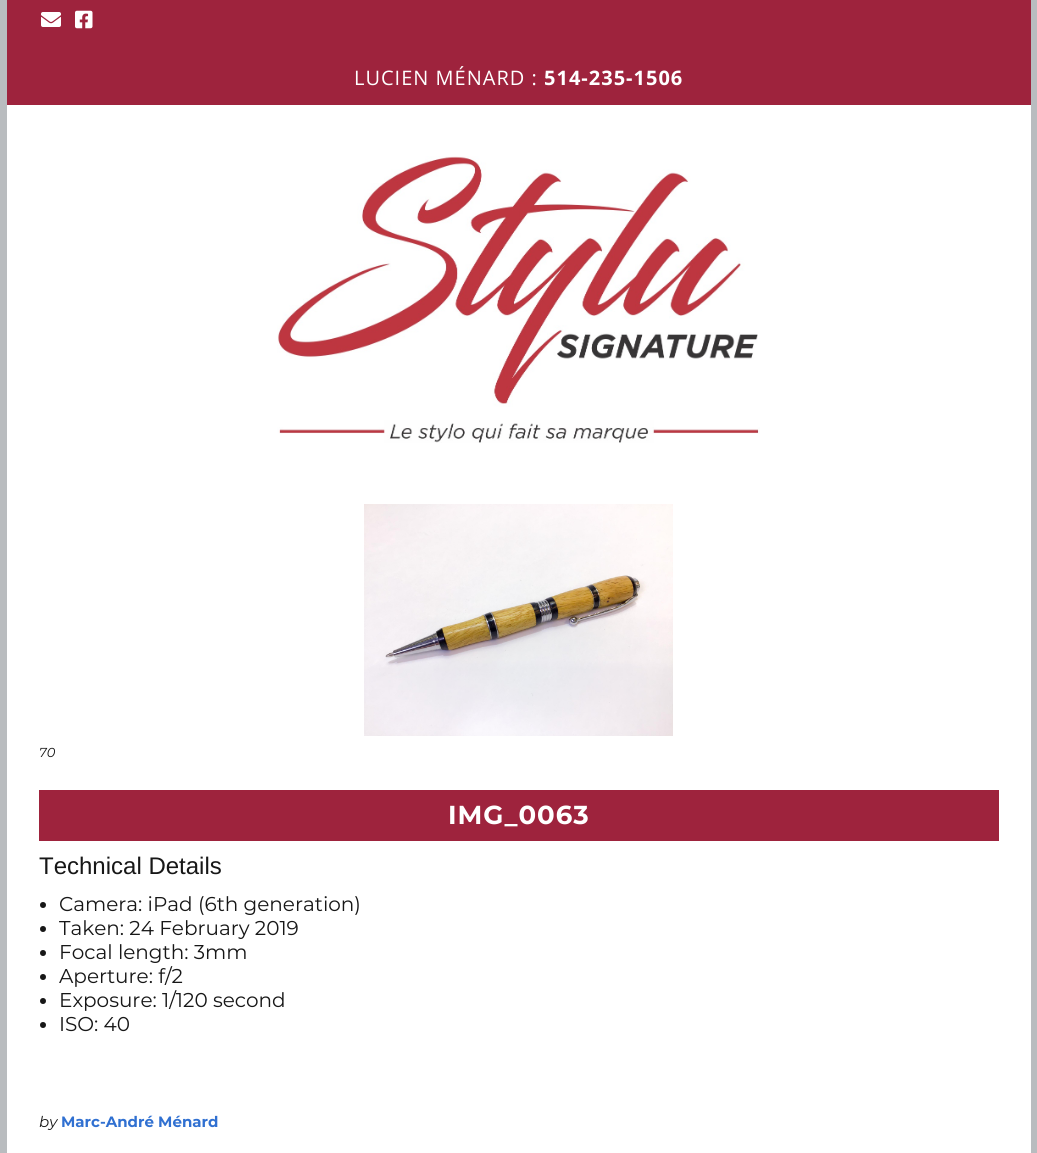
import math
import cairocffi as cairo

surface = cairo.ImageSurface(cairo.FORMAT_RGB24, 1037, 1153)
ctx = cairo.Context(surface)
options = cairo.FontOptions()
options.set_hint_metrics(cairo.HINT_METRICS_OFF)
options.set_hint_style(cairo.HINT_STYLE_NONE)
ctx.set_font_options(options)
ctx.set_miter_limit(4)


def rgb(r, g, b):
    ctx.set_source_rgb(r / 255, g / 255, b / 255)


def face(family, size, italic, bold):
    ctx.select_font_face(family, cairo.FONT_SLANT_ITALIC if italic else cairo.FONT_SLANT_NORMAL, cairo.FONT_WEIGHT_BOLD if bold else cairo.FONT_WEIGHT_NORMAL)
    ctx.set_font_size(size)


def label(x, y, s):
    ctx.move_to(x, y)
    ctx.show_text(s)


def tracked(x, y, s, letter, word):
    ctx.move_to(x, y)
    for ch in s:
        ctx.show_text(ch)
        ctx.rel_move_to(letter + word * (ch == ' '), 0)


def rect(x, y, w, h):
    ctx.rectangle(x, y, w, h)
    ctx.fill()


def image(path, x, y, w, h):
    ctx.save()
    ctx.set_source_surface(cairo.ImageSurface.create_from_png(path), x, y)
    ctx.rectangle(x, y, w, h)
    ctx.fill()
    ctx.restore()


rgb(185, 188, 191)
ctx.paint()
rgb(158, 35, 61)
rect(7, 0, 1024, 105)
image('image0.png', 41, 12, 20, 15)
image('image1.png', 75, 10, 18, 19)
face('Open Sans', 20, 0, 0)
rgb(255, 255, 255)
tracked(354, 85, 'LUCIEN MÉNARD :', 1, 0)
face('Open Sans', 20, 0, 1)
tracked(544, 85, '514-235-1506', 1, 0)
rect(7, 105, 1024, 1048)
image('image2.png', 277, 156, 483, 287)
image('image3.png', 364, 504, 309, 232)
face('Montserrat Thin', 13, 1, 0)
rgb(23, 23, 23)
label(39, 757, '70')
rgb(158, 35, 61)
rect(39, 790, 960, 51)
face('Montserrat', 26, 0, 1)
rgb(255, 255, 255)
tracked(448, 824, 'IMG_0063', 1, 0)
face('Liberation Sans', 24, 0, 0)
rgb(23, 23, 23)
label(39, 874, 'Technical Details')
ctx.new_path()
ctx.arc(43, 905, 3, 0, 2 * math.pi)
ctx.fill()
face('Montserrat', 20, 0, 0)
label(59, 911, 'Camera: iPad (6th generation)')
ctx.new_path()
ctx.arc(43, 929, 3, 0, 2 * math.pi)
ctx.fill()
label(59, 935, 'Taken: 24 February 2019')
ctx.new_path()
ctx.arc(43, 953, 3, 0, 2 * math.pi)
ctx.fill()
label(59, 959, 'Focal length: 3mm')
ctx.new_path()
ctx.arc(43, 977, 3, 0, 2 * math.pi)
ctx.fill()
label(59, 983, 'Aperture: f/2')
ctx.new_path()
ctx.arc(43, 1001, 3, 0, 2 * math.pi)
ctx.fill()
label(59, 1007, 'Exposure: 1/120 second')
ctx.new_path()
ctx.arc(43, 1025, 3, 0, 2 * math.pi)
ctx.fill()
label(59, 1031, 'ISO: 40')
face('Montserrat Thin', 15, 1, 0)
label(39, 1127, 'by')
face('Montserrat', 15, 0, 1)
rgb(48, 112, 209)
label(61, 1127, 'Marc-André Ménard')
surface.write_to_png('render.png')
